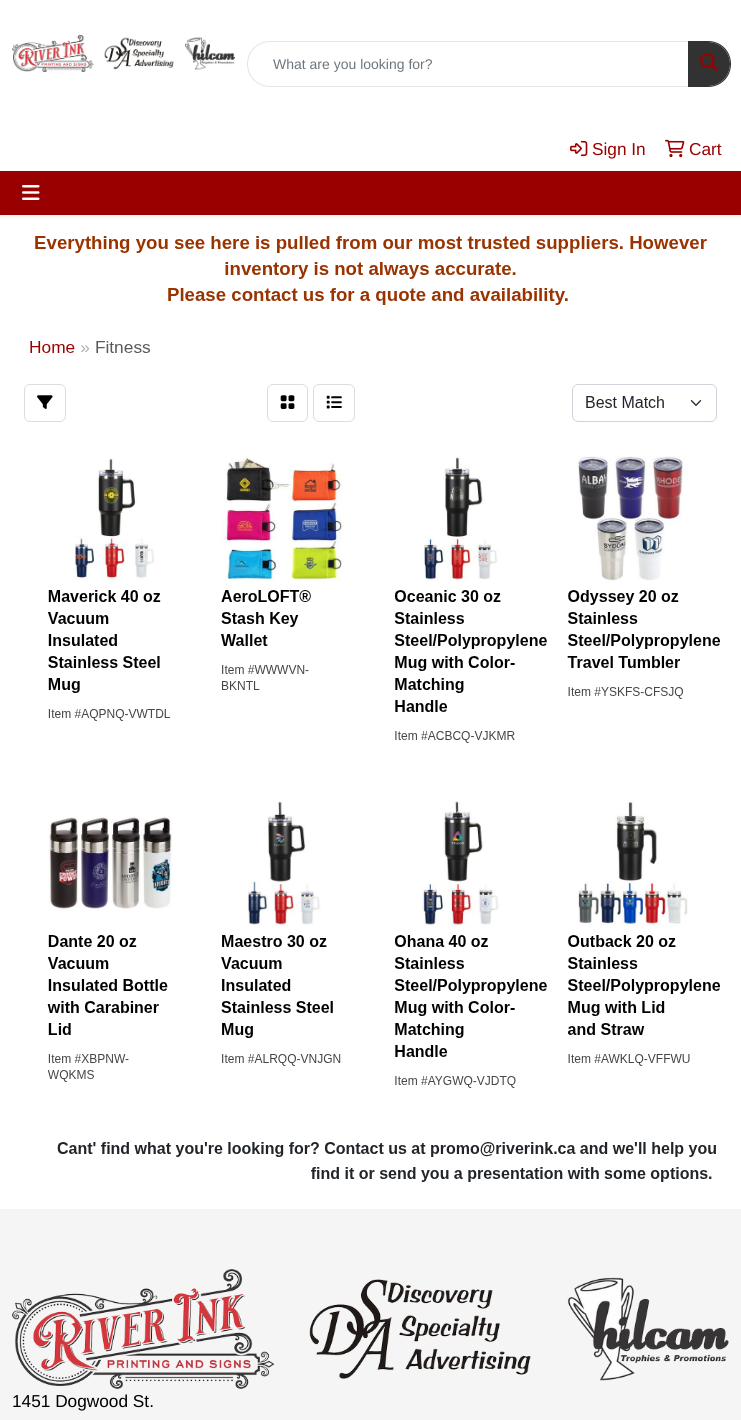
import math
import cairocffi as cairo

surface = cairo.ImageSurface(cairo.FORMAT_RGB24, 741, 1420)
ctx = cairo.Context(surface)
options = cairo.FontOptions()
options.set_hint_metrics(cairo.HINT_METRICS_OFF)
options.set_hint_style(cairo.HINT_STYLE_NONE)
ctx.set_font_options(options)
ctx.set_miter_limit(4)


def rgb(r, g, b):
    ctx.set_source_rgb(r / 255, g / 255, b / 255)


def face(family, size, italic, bold):
    ctx.select_font_face(family, cairo.FONT_SLANT_ITALIC if italic else cairo.FONT_SLANT_NORMAL, cairo.FONT_WEIGHT_BOLD if bold else cairo.FONT_WEIGHT_NORMAL)
    ctx.set_font_size(size)


def label(x, y, s):
    ctx.move_to(x, y)
    ctx.show_text(s)


def rect(x, y, w, h):
    ctx.rectangle(x, y, w, h)
    ctx.fill()


def rrect(x, y, w, h, r):
    ctx.new_sub_path()
    for i, (u, v) in enumerate([(x + w - r, y + h - r), (x + r, y + h - r), (x + r, y + r), (x + w - r, y + r)]):
        ctx.arc(u, v, r, i * math.pi / 2, (i + 1) * math.pi / 2)
    ctx.close_path()


def soft_shadow(x, y, w, h, r, blur, alpha):
    ctx.push_group_with_content(cairo.CONTENT_ALPHA)
    ctx.set_operator(cairo.OPERATOR_SOURCE)
    for i in range(15, -16, -2):
        e = blur * i / 6
        if min(w, h) + 2 * e > 0:
            ctx.set_source_rgba(0, 0, 0, alpha * math.erfc((i - 1) / 8.5) / 2)
            rrect(x - e, y - e, w + 2 * e, h + 2 * e, max(0, min(r + e + blur * .6, min(w, h) / 2 + e)))
            ctx.fill()
    ctx.mask(ctx.pop_group())


def image(path, x, y, w, h):
    ctx.save()
    ctx.set_source_surface(cairo.ImageSurface.create_from_png(path), x, y)
    ctx.rectangle(x, y, w, h)
    ctx.fill()
    ctx.restore()


rgb(255, 255, 255)
ctx.paint()
image('image0.png', 12, 35, 223, 37)
ctx.new_path()
ctx.move_to(270, 41.5)
ctx.line_to(688.5, 41.5)
ctx.line_to(688.5, 86.5)
ctx.line_to(270, 86.5)
ctx.curve_to(257.5, 86.5, 247.5, 76.5, 247.5, 64)
ctx.curve_to(247.5, 51.5, 257.5, 41.5, 270, 41.5)
ctx.close_path()
rgb(228, 228, 228)
ctx.set_line_width(1)
ctx.stroke()
face('Liberation Sans', 14, 0, 0)
rgb(108, 117, 125)
label(273, 69, 'What are you looking for?')
rgb(51, 50, 50)
ctx.new_path()
ctx.move_to(688, 42)
ctx.line_to(708, 42)
ctx.curve_to(720, 42, 730, 52, 730, 64)
ctx.curve_to(730, 76, 720, 86, 708, 86)
ctx.line_to(688, 86)
ctx.close_path()
ctx.fill()
ctx.set_fill_rule(cairo.FILL_RULE_EVEN_ODD)
ctx.new_path()
ctx.move_to(688, 41)
ctx.line_to(708, 41)
ctx.curve_to(721, 41, 731, 51, 731, 64)
ctx.curve_to(731, 77, 721, 87, 708, 87)
ctx.line_to(688, 87)
ctx.close_path()
ctx.move_to(688, 42)
ctx.line_to(708, 42)
ctx.curve_to(720, 42, 730, 52, 730, 64)
ctx.curve_to(730, 76, 720, 86, 708, 86)
ctx.line_to(688, 86)
ctx.close_path()
ctx.fill()
image('image1.png', 700, 53, 18, 19)
image('image2.png', 570, 140, 18, 17)
face('Liberation Sans', 17.25, 0, 0)
rgb(153, 0, 0)
label(592, 155, 'Sign In')
image('image3.png', 665, 139, 20, 19)
label(689, 155, 'Cart')
rgb(0, 0, 0)
soft_shadow(0, 173, 741, 44, 0, 2, 0.07)
rgb(153, 0, 0)
rect(0, 171, 741, 44)
image('image4.png', 22, 185, 18, 15)
image('image5.png', 24, 236, 697, 946)
rgb(245, 245, 245)
rect(0, 1209, 741, 211)
image('image6.png', 12, 1269, 717, 120)
rgb(0, 0, 0)
label(12, 1407, '1451 Dogwood St.')
surface.write_to_png('render.png')
